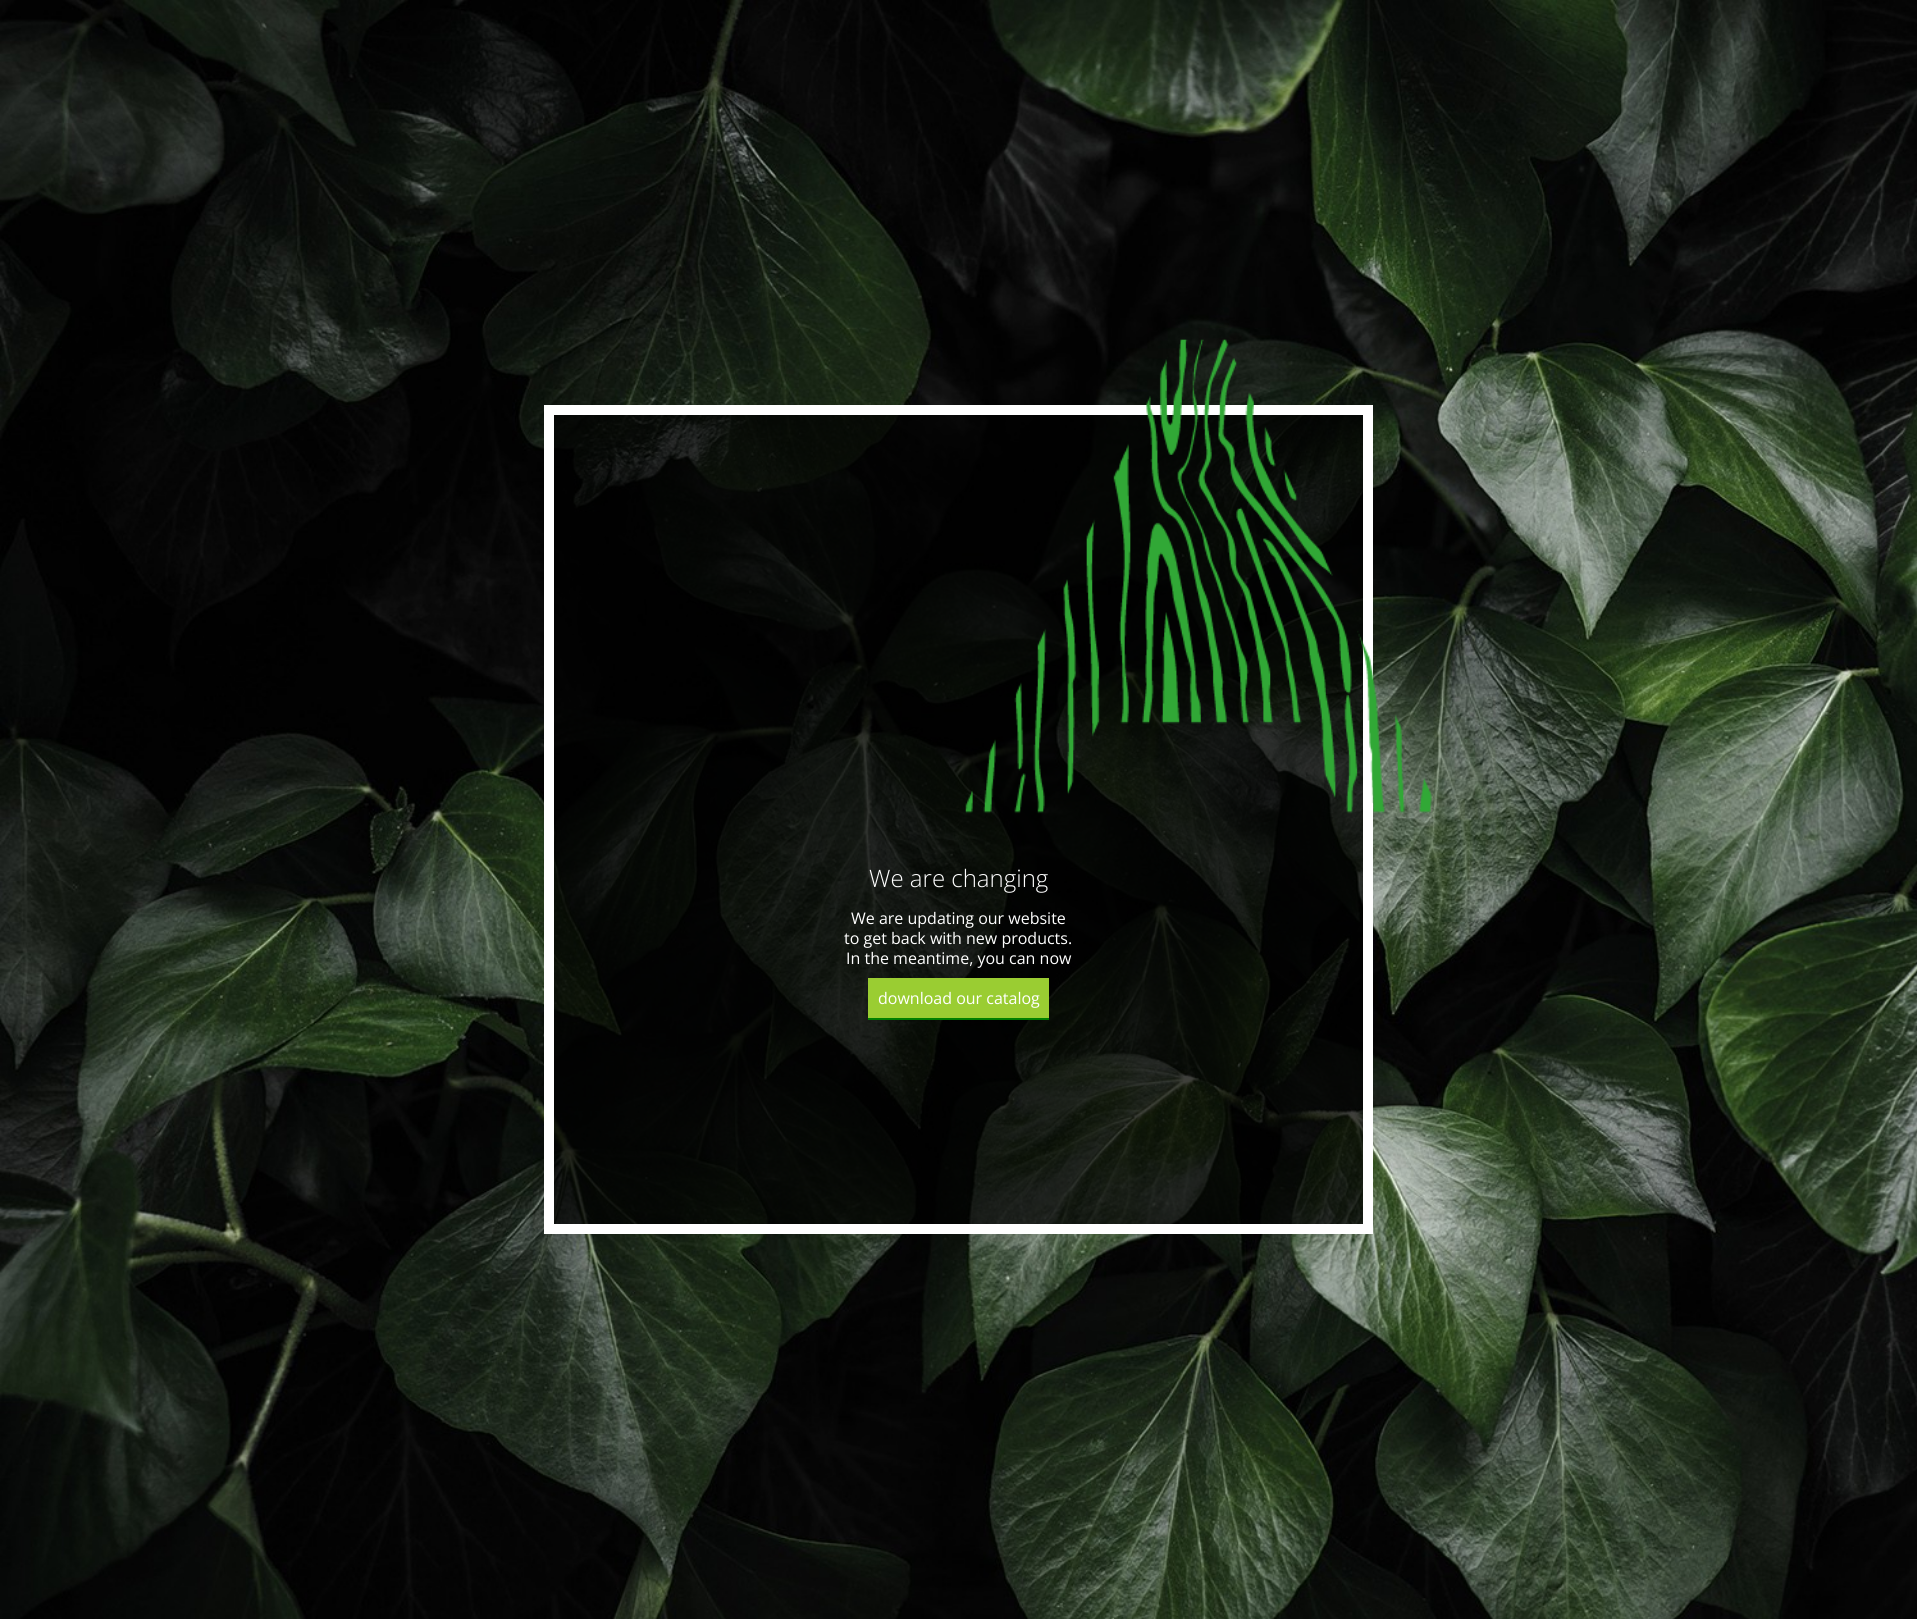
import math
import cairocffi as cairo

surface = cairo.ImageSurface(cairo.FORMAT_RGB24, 1917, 1619)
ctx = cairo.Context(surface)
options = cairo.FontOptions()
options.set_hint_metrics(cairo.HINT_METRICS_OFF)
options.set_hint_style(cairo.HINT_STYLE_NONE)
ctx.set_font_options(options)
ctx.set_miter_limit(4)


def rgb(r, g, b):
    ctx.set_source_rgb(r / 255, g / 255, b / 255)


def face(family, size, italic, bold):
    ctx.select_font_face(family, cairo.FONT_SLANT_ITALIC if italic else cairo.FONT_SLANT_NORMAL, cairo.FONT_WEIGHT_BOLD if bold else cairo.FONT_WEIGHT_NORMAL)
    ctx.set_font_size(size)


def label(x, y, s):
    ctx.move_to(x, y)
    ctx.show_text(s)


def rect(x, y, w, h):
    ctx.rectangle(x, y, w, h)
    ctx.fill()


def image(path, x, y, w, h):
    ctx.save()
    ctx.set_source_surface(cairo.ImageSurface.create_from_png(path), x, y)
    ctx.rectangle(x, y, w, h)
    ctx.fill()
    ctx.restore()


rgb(255, 255, 255)
ctx.paint()
image('image0.png', 0, 0, 1917, 1619)
ctx.set_source_rgba(0, 0, 0, 0.75)
ctx.rectangle(549, 410, 819, 819)
ctx.fill_preserve()
rgb(255, 255, 255)
ctx.set_line_width(10)
ctx.stroke()
image('image1.png', 965, 339, 467, 475)
face('Open Sans Light', 24, 0, 0)
label(869, 887, 'We are changing')
face('Open Sans', 16, 0, 0)
label(851, 924, 'We are updating our website')
label(844, 944, 'to get back with new products.')
label(846, 964, 'In the meantime, you can now')
rgb(154, 205, 50)
rect(868, 978, 181, 40)
rgb(0, 128, 0)
rect(868, 1018, 181, 2)
rgb(255, 255, 255)
label(878, 1004, 'download our catalog')
surface.write_to_png('render.png')
